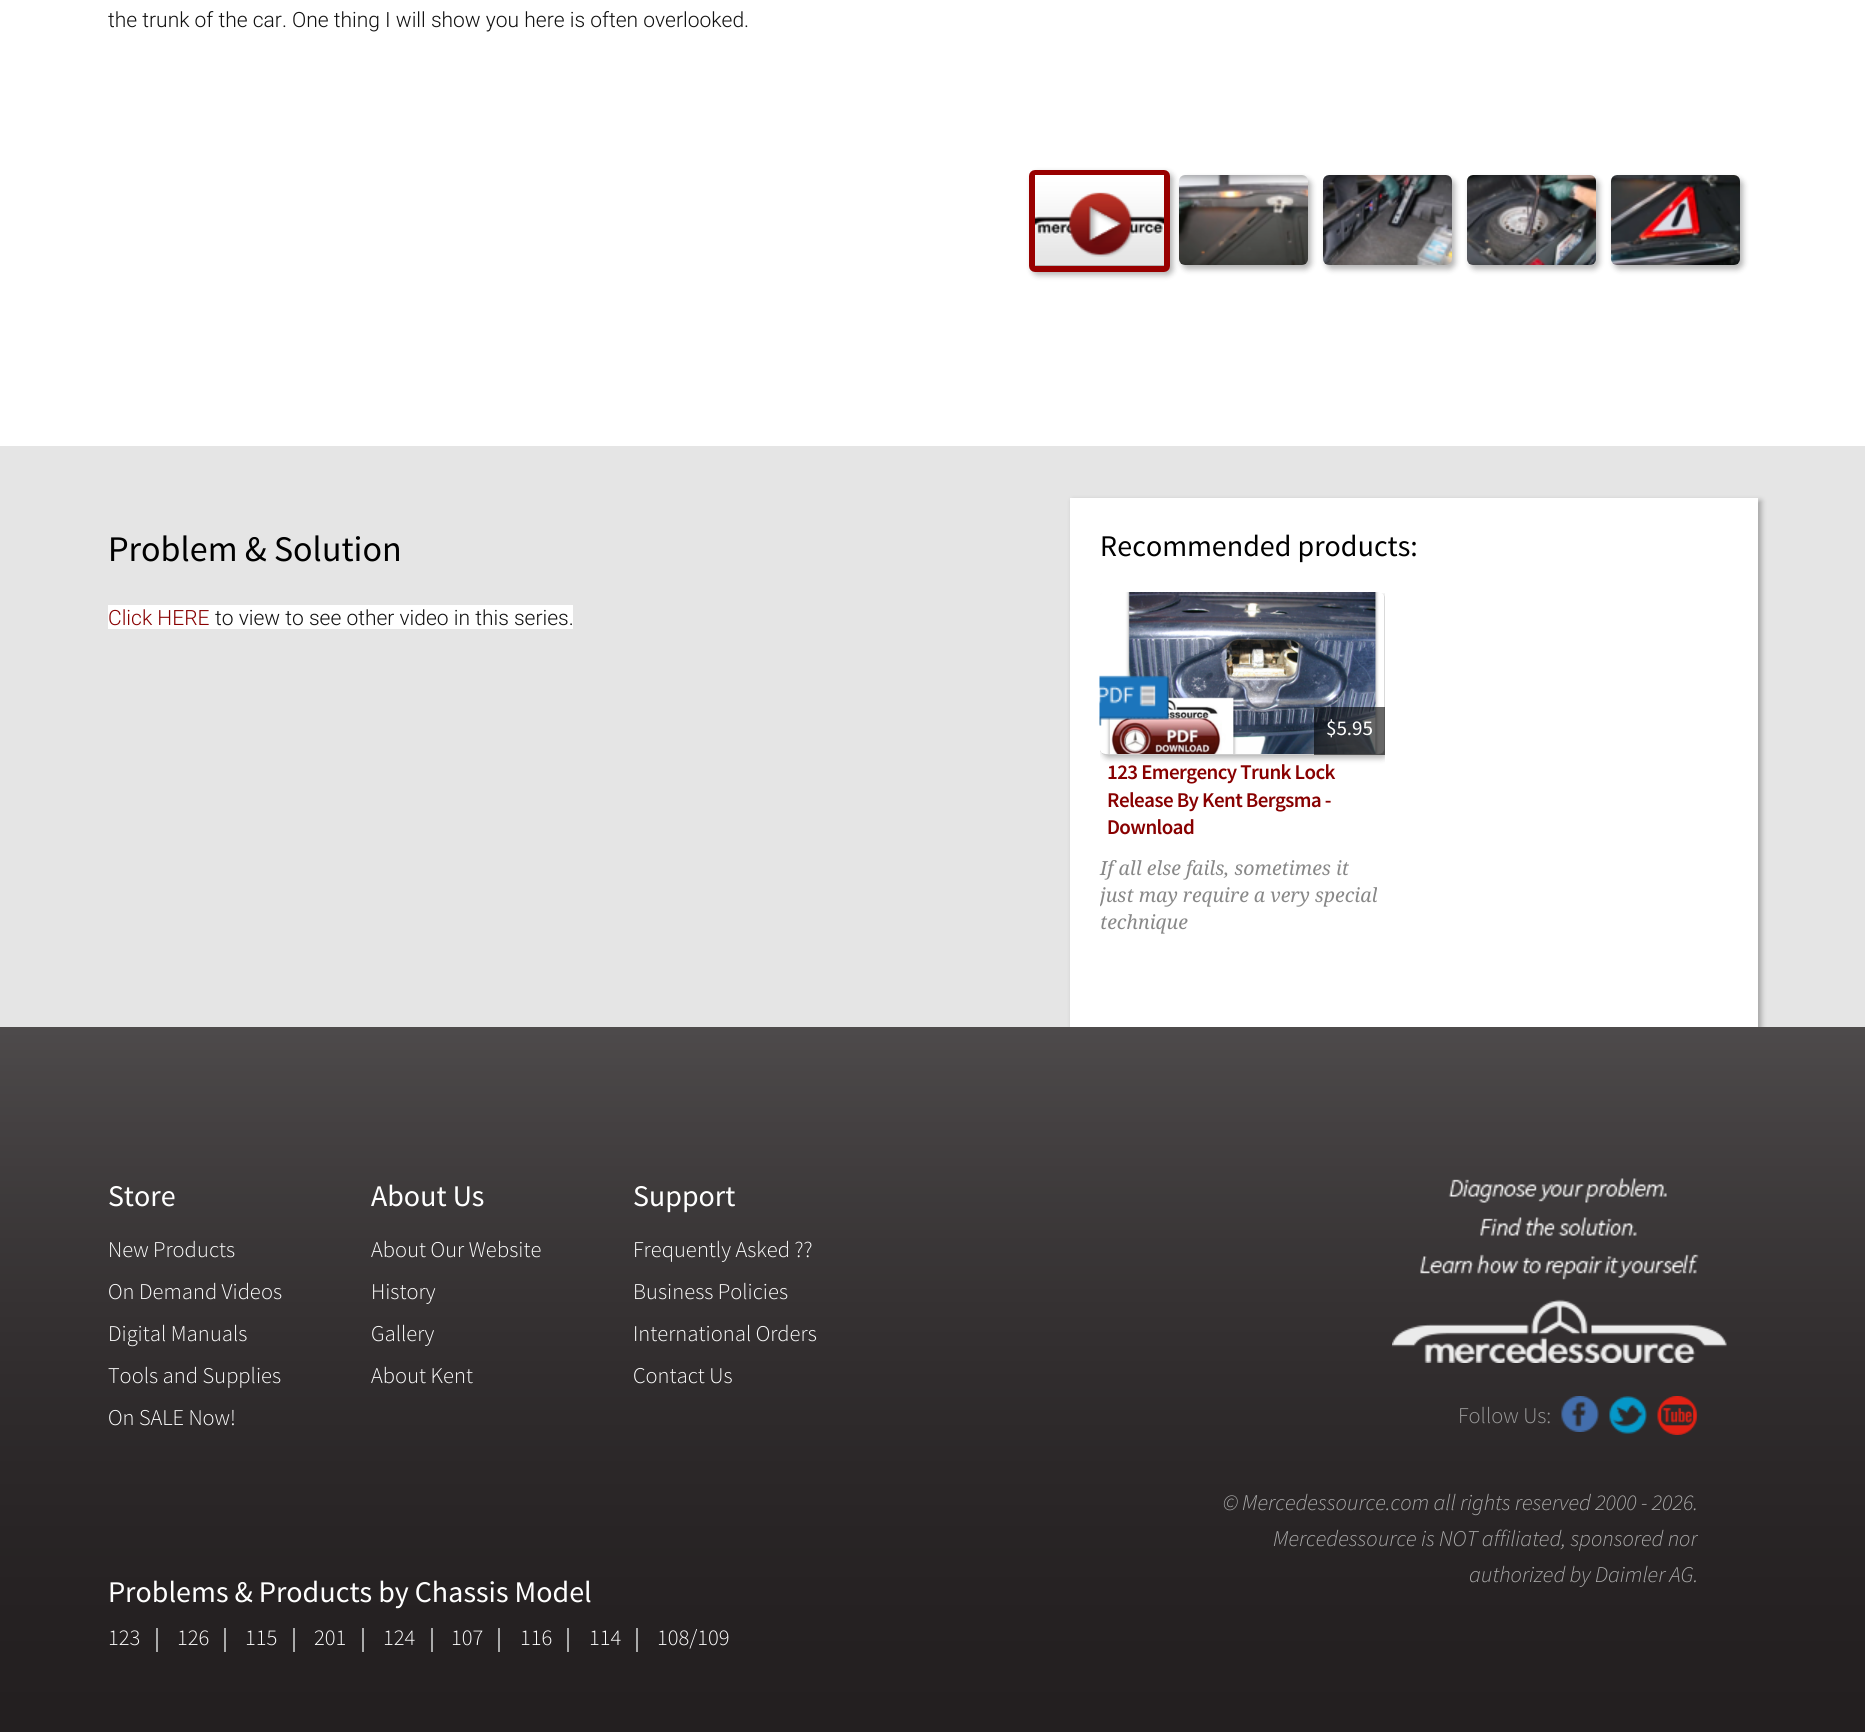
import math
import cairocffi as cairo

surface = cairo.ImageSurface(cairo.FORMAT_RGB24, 1865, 1732)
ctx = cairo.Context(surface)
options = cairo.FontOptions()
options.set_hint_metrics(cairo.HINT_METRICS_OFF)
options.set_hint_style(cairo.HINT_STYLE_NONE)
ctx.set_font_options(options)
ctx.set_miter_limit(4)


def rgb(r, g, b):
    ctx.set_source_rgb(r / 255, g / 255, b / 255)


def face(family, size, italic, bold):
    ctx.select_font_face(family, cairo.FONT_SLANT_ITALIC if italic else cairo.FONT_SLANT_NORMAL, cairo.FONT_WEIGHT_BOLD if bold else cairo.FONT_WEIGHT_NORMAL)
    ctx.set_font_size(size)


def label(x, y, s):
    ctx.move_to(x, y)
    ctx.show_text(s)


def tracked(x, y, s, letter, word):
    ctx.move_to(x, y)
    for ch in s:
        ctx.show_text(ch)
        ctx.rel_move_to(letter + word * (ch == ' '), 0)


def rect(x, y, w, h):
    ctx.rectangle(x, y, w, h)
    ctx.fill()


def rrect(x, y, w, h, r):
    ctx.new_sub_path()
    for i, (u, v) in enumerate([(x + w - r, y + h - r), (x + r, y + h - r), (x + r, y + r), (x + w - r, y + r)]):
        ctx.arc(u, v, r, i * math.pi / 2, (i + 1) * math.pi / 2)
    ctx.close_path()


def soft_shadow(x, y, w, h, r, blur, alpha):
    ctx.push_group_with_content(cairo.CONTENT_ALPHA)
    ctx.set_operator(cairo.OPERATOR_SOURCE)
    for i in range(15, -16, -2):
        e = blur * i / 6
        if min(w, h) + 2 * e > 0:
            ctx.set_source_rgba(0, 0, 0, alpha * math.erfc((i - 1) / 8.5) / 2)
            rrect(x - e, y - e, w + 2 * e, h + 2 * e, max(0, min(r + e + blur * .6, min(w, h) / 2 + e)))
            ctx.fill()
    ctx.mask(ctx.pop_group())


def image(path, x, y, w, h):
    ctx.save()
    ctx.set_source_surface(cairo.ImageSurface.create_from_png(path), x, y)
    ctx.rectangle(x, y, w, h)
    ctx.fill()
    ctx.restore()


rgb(255, 255, 255)
ctx.paint()
face('Roboto Light', 21, 0, 0)
rgb(17, 17, 17)
label(108, 27, 'the trunk of the car. One thing I will show you here is often overlooked.')
rgb(0, 0, 0)
soft_shadow(1032, 173, 141, 102, 6, 3, 0.3)
rrect(1032, 173, 135, 96, 3)
rgb(153, 0, 0)
ctx.set_line_width(6)
ctx.stroke()
image('image0.png', 1035, 175, 129, 90)
image('image1.png', 1069, 192, 65, 65)
rgb(0, 0, 0)
soft_shadow(1182, 179, 129, 90, 6, 3, 0.3)
image('image2.png', 1179, 175, 129, 90)
soft_shadow(1326, 179, 129, 90, 6, 3, 0.3)
image('image3.png', 1323, 175, 129, 90)
soft_shadow(1470, 179, 129, 90, 6, 3, 0.3)
image('image4.png', 1467, 175, 129, 90)
soft_shadow(1614, 179, 129, 90, 6, 3, 0.3)
image('image5.png', 1611, 175, 129, 90)
rgb(229, 229, 229)
rect(0, 446, 1865, 581)
face('Source Sans Pro', 36, 0, 0)
rgb(0, 0, 0)
label(108, 561, 'Problem & Solution')
rgb(255, 255, 255)
rect(108, 605, 465, 24)
face('Roboto Light', 21, 0, 0)
rgb(136, 0, 0)
label(108, 625, 'Click HERE')
rgb(17, 17, 17)
label(215, 625, 'to view to see other video in this series.')
rgb(0, 0, 0)
soft_shadow(1073, 501, 688, 530, 0, 3, 0.3)
rgb(255, 255, 255)
rect(1070, 498, 688, 529)
face('Source Sans Pro', 30, 0, 0)
rgb(0, 0, 0)
label(1100, 556, 'Recommended products:')
ctx.save()
ctx.rectangle(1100, 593, 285, 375)
ctx.clip()
rgb(0, 0, 0)
soft_shadow(1103, 596, 285, 162, 6, 3, 0.3)
ctx.restore()
rgb(204, 204, 204)
rrect(1100, 593, 285, 162, 6)
ctx.fill()
image('image6.png', 1100, 592, 285, 162)
image('image7.png', 1099, 675, 70, 51)
ctx.set_source_rgba(0, 0, 0, 0.6)
rect(1314, 707, 71, 48)
face('Source Sans Pro', 21, 0, 0)
rgb(255, 255, 255)
label(1326, 735, '$5.95')
face('Source Sans Pro SemiBold', 21, 0, 0)
rgb(136, 0, 0)
tracked(1107, 779, '123 Emergency Trunk Lock', -0.6, 0)
tracked(1107, 807, 'Release By Kent Bergsma -', -0.6, 0)
tracked(1107, 834, 'Download', -0.6, 0)
face('Noto Serif', 19.5, 1, 0)
rgb(136, 136, 136)
label(1100, 875, 'If all else fails, sometimes it')
ctx.save()
ctx.rectangle(1100, 593, 285, 375)
ctx.clip()
label(1100, 902, 'just may require a very special')
ctx.restore()
label(1100, 929, 'technique')
image('image8.png', 0, 1027, 1865, 705)
face('Source Sans Pro', 30, 0, 0)
rgb(255, 255, 255)
label(108, 1206, 'Store')
face('Source Sans Pro Light', 22.5, 0, 0)
label(108, 1257, 'New Products')
label(108, 1299, 'On Demand Videos')
label(108, 1341, 'Digital Manuals')
label(108, 1383, 'Tools and Supplies')
label(108, 1425, 'On SALE Now!')
face('Source Sans Pro', 30, 0, 0)
label(371, 1206, 'About Us')
face('Source Sans Pro Light', 22.5, 0, 0)
label(371, 1257, 'About Our Website')
label(371, 1299, 'History')
label(371, 1341, 'Gallery')
label(371, 1383, 'About Kent')
face('Source Sans Pro', 30, 0, 0)
label(633, 1206, 'Support')
face('Source Sans Pro Light', 22.5, 0, 0)
label(633, 1257, 'Frequently Asked ??')
label(633, 1299, 'Business Policies')
label(633, 1341, 'International Orders')
label(633, 1383, 'Contact Us')
image('image9.png', 1392, 1178, 335, 185)
rgb(153, 153, 153)
label(1458, 1423, 'Follow Us:')
image('image10.png', 1561, 1396, 38, 36)
image('image11.png', 1609, 1396, 38, 38)
image('image12.png', 1657, 1396, 41, 39)
face('Source Sans Pro Light', 22.5, 1, 0)
rgb(170, 170, 170)
label(1223, 1510, '© Mercedessource.com all rights reserved 2000 - 2026.')
label(1273, 1546, 'Mercedessource is NOT affiliated, sponsored nor')
label(1469, 1582, 'authorized by Daimler AG.')
face('Source Sans Pro', 30, 0, 0)
rgb(255, 255, 255)
label(108, 1602, 'Problems & Products by Chassis Model')
face('Source Sans Pro Light', 22.5, 0, 0)
label(108, 1645, '123')
rgb(170, 170, 170)
rect(156, 1628, 2, 24)
rgb(255, 255, 255)
label(177, 1645, '126')
rgb(170, 170, 170)
rect(224, 1628, 2, 24)
rgb(255, 255, 255)
label(245, 1645, '115')
rgb(170, 170, 170)
rect(293, 1628, 2, 24)
rgb(255, 255, 255)
label(314, 1645, '201')
rgb(170, 170, 170)
rect(362, 1628, 2, 24)
rgb(255, 255, 255)
label(383, 1645, '124')
rgb(170, 170, 170)
rect(431, 1628, 2, 24)
rgb(255, 255, 255)
label(451, 1645, '107')
rgb(170, 170, 170)
rect(498, 1628, 2, 24)
rgb(255, 255, 255)
label(520, 1645, '116')
rgb(170, 170, 170)
rect(567, 1628, 2, 24)
rgb(255, 255, 255)
label(589, 1645, '114')
rgb(170, 170, 170)
rect(636, 1628, 2, 24)
rgb(255, 255, 255)
label(657, 1645, '108/109')
surface.write_to_png('render.png')
